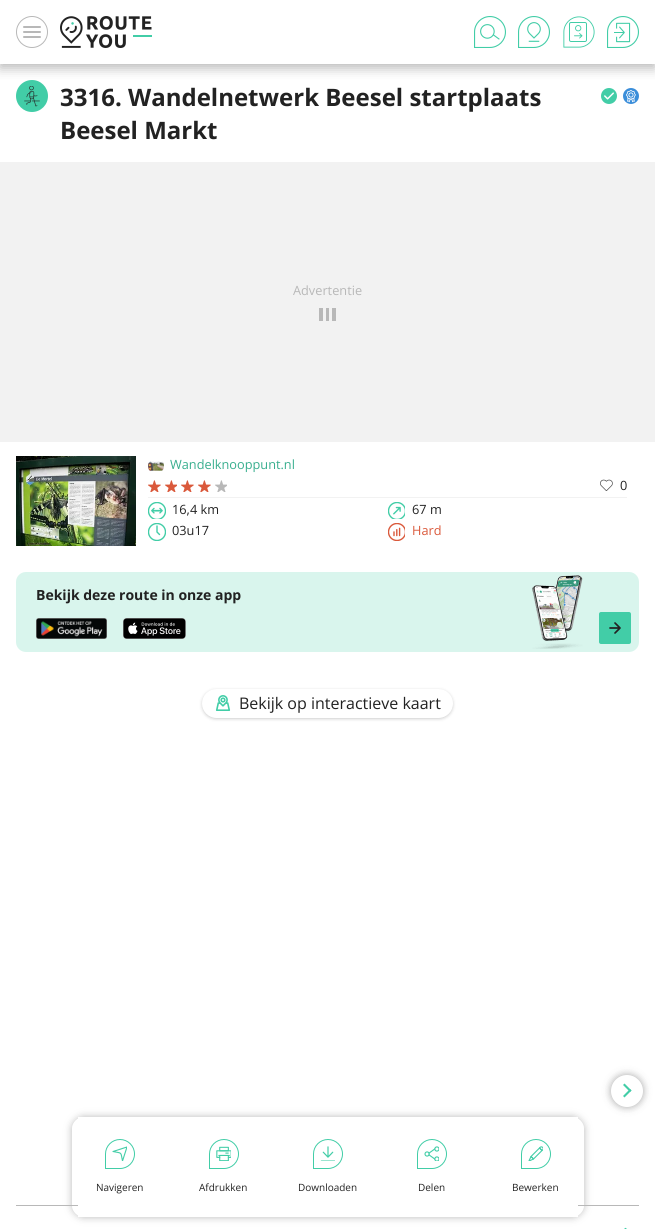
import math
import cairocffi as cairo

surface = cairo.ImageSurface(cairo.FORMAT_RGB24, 655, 1229)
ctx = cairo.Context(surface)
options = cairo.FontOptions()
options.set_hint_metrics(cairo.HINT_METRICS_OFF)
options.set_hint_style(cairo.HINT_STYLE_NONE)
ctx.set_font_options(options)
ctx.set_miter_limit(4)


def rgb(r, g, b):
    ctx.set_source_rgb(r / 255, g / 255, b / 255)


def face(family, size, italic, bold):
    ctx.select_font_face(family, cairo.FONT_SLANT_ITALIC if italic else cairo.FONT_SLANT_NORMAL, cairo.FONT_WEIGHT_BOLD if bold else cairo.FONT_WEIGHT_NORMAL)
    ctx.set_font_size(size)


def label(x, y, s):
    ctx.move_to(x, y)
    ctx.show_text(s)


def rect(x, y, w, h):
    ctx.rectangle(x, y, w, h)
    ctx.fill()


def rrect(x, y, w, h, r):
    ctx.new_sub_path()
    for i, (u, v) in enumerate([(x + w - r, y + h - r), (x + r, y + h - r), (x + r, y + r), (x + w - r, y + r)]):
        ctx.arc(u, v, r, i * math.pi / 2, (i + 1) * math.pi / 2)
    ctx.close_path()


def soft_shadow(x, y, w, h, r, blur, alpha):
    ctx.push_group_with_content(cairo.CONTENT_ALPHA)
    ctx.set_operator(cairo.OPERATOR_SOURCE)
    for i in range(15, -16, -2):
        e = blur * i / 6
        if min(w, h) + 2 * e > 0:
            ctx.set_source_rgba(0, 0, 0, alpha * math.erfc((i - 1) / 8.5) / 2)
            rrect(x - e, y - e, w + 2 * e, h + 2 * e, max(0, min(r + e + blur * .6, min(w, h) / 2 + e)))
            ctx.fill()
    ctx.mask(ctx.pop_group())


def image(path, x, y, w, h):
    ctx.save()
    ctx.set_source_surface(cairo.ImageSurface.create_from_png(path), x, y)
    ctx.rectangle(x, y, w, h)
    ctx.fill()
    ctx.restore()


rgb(255, 255, 255)
ctx.paint()
rgb(66, 205, 167)
ctx.arc(32, 96, 16, 0, 2 * math.pi)
ctx.fill()
image('image5.png', 24, 86, 16, 21)
ctx.save()
ctx.rectangle(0, 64, 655, 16)
ctx.clip()
rgb(184, 184, 184)
soft_shadow(0, 4, 655, 64, 0, 6, 1)
ctx.restore()
ctx.arc(32, 32, 15.5, 0, 2 * math.pi)
rgb(184, 184, 184)
ctx.set_line_width(1)
ctx.stroke()
rrect(23, 26, 18, 2, 1)
ctx.fill()
rrect(23, 31, 18, 2, 1)
ctx.fill()
rrect(23, 36, 18, 2, 1)
ctx.fill()
image('image0.png', 60, 16, 92, 32)
image('image1.png', 474, 16, 32, 32)
image('image2.png', 518, 16, 32, 32)
image('image3.png', 563, 16, 32, 32)
image('image4.png', 607, 16, 32, 32)
face('Open Sans', 24, 0, 1)
rgb(34, 34, 34)
label(60, 106, '3316. Wandelnetwerk Beesel startplaats')
label(60, 139, 'Beesel Markt')
image('image6.png', 601, 88, 16, 16)
image('image7.png', 623, 88, 16, 16)
rgb(242, 242, 242)
rect(0, 162, 655, 280)
face('Open Sans', 12.75, 0, 0)
rgb(184, 184, 184)
label(293, 295, 'Advertentie')
rect(326, 308, 3, 13)
rect(319, 308, 4, 13)
rect(332, 308, 4, 13)
image('image8.png', 16, 456, 120, 90)
image('image9.png', 148, 461, 16, 11)
rgb(56, 174, 142)
label(170, 469, 'Wandelknooppunt.nl')
image('image10.png', 148, 480, 13, 12)
image('image11.png', 165, 480, 12, 12)
image('image10.png', 181, 480, 13, 12)
image('image10.png', 198, 480, 13, 12)
image('image12.png', 215, 480, 12, 12)
image('image13.png', 600, 479, 13, 12)
rgb(34, 34, 34)
label(620, 490, '0')
rgb(242, 242, 242)
rect(148, 497, 479, 1)
image('image14.png', 148, 502, 18, 17)
rgb(34, 34, 34)
label(172, 514, '16,4 km')
image('image15.png', 388, 502, 17, 17)
label(412, 514, '67 m')
ctx.save()
ctx.rectangle(148, 523, 18, 18)
ctx.clip()
ctx.arc(157, 532, 8.5, 0, 2 * math.pi)
rgb(66, 205, 167)
ctx.set_line_width(1.4)
ctx.stroke()
ctx.restore()
ctx.new_path()
ctx.move_to(157, 532)
ctx.line_to(157, 526)
ctx.move_to(159.5, 534.5)
ctx.line_to(157, 532)
rgb(66, 205, 167)
ctx.set_line_width(1.4)
ctx.set_line_cap(cairo.LINE_CAP_ROUND)
ctx.stroke()
rgb(34, 34, 34)
label(172, 535, '03u17')
image('image16.png', 388, 523, 17, 18)
rgb(218, 89, 59)
label(412, 535, 'Hard')
rgb(217, 245, 237)
rrect(16, 572, 623, 80, 10)
ctx.fill()
face('Open Sans', 14, 0, 1)
rgb(34, 34, 34)
label(36, 600, 'Bekijk deze route in onze app')
image('image17.png', 36, 618, 71, 21)
image('image18.png', 123, 618, 63, 21)
image('image19.png', 532, 575, 51, 74)
rgb(66, 205, 167)
rrect(599, 612, 32, 32, 2)
ctx.fill()
ctx.new_path()
ctx.move_to(610, 628)
ctx.line_to(620, 628)
ctx.move_to(620, 628)
ctx.line_to(615, 623)
ctx.move_to(620, 628)
ctx.line_to(615, 633)
rgb(34, 34, 34)
ctx.set_line_width(1.7)
ctx.set_line_join(cairo.LINE_JOIN_ROUND)
ctx.stroke()
rgb(0, 0, 0)
soft_shadow(203, 691, 249, 27, 13.5, 2, 0.3)
rgb(255, 255, 255)
rrect(202, 689, 251, 29, 14.5)
ctx.fill()
image('image20.png', 215, 695, 16, 16)
face('Open Sans', 16, 0, 0)
rgb(34, 34, 34)
label(239, 709, 'Bekijk op interactieve kaart')
rgb(34, 34, 34)
soft_shadow(611, 1075, 32, 32, 16, 4, 0.4)
rgb(255, 255, 255)
ctx.arc(627, 1091, 16, 0, 2 * math.pi)
ctx.fill()
rgb(66, 205, 167)
ctx.new_path()
ctx.move_to(623, 1085)
ctx.line_to(624.5, 1083.5)
ctx.line_to(631.5, 1090.5)
ctx.line_to(630, 1092)
ctx.close_path()
ctx.fill()
ctx.new_path()
ctx.move_to(623, 1096)
ctx.line_to(630, 1089)
ctx.line_to(631.5, 1090.5)
ctx.line_to(624.5, 1097.5)
ctx.close_path()
ctx.fill()
rgb(184, 184, 184)
rect(16, 1205, 623, 1)
ctx.new_path()
ctx.move_to(630, 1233)
ctx.line_to(625.5, 1228.5)
ctx.line_to(621, 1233)
rgb(66, 205, 167)
ctx.set_line_width(1.3)
ctx.stroke()
ctx.save()
ctx.set_fill_rule(cairo.FILL_RULE_EVEN_ODD)
ctx.new_path()
ctx.move_to(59, 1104)
ctx.line_to(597, 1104)
ctx.line_to(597, 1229)
ctx.line_to(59, 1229)
ctx.close_path()
ctx.move_to(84, 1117)
ctx.line_to(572, 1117)
ctx.curve_to(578.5, 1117, 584, 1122.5, 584, 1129)
ctx.line_to(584, 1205)
ctx.curve_to(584, 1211.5, 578.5, 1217, 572, 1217)
ctx.line_to(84, 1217)
ctx.curve_to(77.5, 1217, 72, 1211.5, 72, 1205)
ctx.line_to(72, 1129)
ctx.curve_to(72, 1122.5, 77.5, 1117, 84, 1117)
ctx.close_path()
ctx.clip()
rgb(184, 184, 184)
soft_shadow(72, 1117, 512, 100, 12, 4, 1)
ctx.restore()
rgb(255, 255, 255)
rect(78, 1117, 500, 2)
rect(78, 1205, 500, 12)
ctx.new_path()
ctx.move_to(120, 1139.5)
ctx.curve_to(128, 1139.5, 134.5, 1146, 134.5, 1154)
ctx.curve_to(134.5, 1162, 128, 1168.5, 120, 1168.5)
ctx.line_to(105.5, 1168.5)
ctx.line_to(105.5, 1154)
ctx.curve_to(105.5, 1146, 112, 1139.5, 120, 1139.5)
ctx.close_path()
rgb(66, 205, 167)
ctx.set_line_width(1)
ctx.set_line_cap(cairo.LINE_CAP_BUTT)
ctx.set_line_join(cairo.LINE_JOIN_MITER)
ctx.stroke()
ctx.save()
ctx.rectangle(112, 1146, 15, 15)
ctx.clip()
ctx.new_path()
ctx.move_to(122.5, 1161)
ctx.curve_to(120.5, 1151.5, 122.5, 1153.5, 113, 1151.5)
ctx.line_to(127, 1147)
ctx.close_path()
ctx.set_line_width(1.1)
ctx.set_line_cap(cairo.LINE_CAP_ROUND)
ctx.set_line_join(cairo.LINE_JOIN_ROUND)
ctx.stroke()
ctx.restore()
face('Open Sans', 10, 0, 0)
rgb(34, 34, 34)
label(96, 1191, 'Navigeren')
ctx.new_path()
ctx.move_to(224, 1139.5)
ctx.curve_to(232, 1139.5, 238.5, 1146, 238.5, 1154)
ctx.curve_to(238.5, 1162, 232, 1168.5, 224, 1168.5)
ctx.line_to(209.5, 1168.5)
ctx.line_to(209.5, 1154)
ctx.curve_to(209.5, 1146, 216, 1139.5, 224, 1139.5)
ctx.close_path()
rgb(66, 205, 167)
ctx.stroke()
image('image21.png', 216, 1146, 15, 15)
rgb(34, 34, 34)
label(199, 1191, 'Afdrukken')
ctx.new_path()
ctx.move_to(328, 1139.5)
ctx.curve_to(336, 1139.5, 342.5, 1146, 342.5, 1154)
ctx.curve_to(342.5, 1162, 336, 1168.5, 328, 1168.5)
ctx.line_to(313.5, 1168.5)
ctx.line_to(313.5, 1154)
ctx.curve_to(313.5, 1146, 320, 1139.5, 328, 1139.5)
ctx.close_path()
rgb(66, 205, 167)
ctx.stroke()
image('image22.png', 320, 1146, 15, 15)
rgb(34, 34, 34)
label(298, 1191, 'Downloaden')
ctx.new_path()
ctx.move_to(432, 1139.5)
ctx.curve_to(440, 1139.5, 446.5, 1146, 446.5, 1154)
ctx.curve_to(446.5, 1162, 440, 1168.5, 432, 1168.5)
ctx.line_to(417.5, 1168.5)
ctx.line_to(417.5, 1154)
ctx.curve_to(417.5, 1146, 424, 1139.5, 432, 1139.5)
ctx.close_path()
rgb(66, 205, 167)
ctx.stroke()
image('image23.png', 424, 1146, 15, 15)
rgb(34, 34, 34)
label(418, 1191, 'Delen')
ctx.new_path()
ctx.move_to(536, 1139.5)
ctx.curve_to(544, 1139.5, 550.5, 1146, 550.5, 1154)
ctx.curve_to(550.5, 1162, 544, 1168.5, 536, 1168.5)
ctx.line_to(521.5, 1168.5)
ctx.line_to(521.5, 1154)
ctx.curve_to(521.5, 1146, 528, 1139.5, 536, 1139.5)
ctx.close_path()
rgb(66, 205, 167)
ctx.stroke()
image('image24.png', 528, 1146, 15, 15)
rgb(34, 34, 34)
label(512, 1191, 'Bewerken')
surface.write_to_png('render.png')
